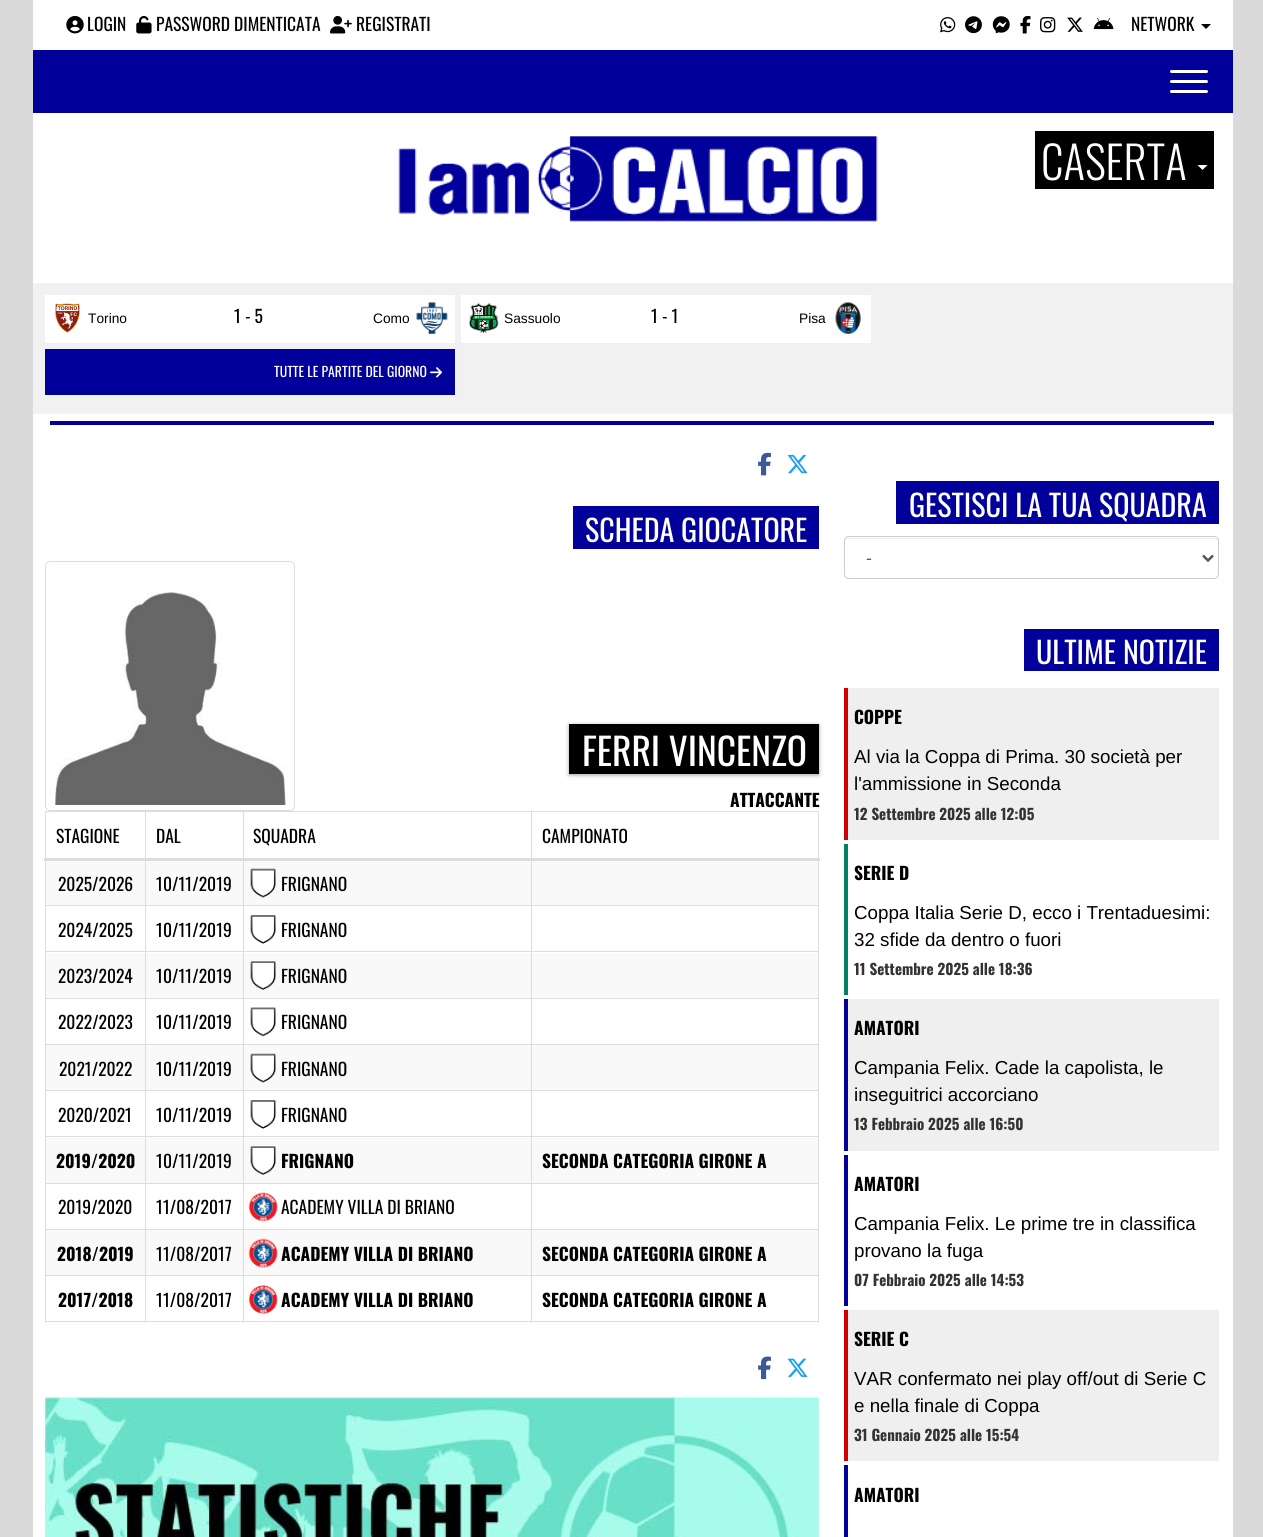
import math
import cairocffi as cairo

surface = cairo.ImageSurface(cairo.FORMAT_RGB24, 1263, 1537)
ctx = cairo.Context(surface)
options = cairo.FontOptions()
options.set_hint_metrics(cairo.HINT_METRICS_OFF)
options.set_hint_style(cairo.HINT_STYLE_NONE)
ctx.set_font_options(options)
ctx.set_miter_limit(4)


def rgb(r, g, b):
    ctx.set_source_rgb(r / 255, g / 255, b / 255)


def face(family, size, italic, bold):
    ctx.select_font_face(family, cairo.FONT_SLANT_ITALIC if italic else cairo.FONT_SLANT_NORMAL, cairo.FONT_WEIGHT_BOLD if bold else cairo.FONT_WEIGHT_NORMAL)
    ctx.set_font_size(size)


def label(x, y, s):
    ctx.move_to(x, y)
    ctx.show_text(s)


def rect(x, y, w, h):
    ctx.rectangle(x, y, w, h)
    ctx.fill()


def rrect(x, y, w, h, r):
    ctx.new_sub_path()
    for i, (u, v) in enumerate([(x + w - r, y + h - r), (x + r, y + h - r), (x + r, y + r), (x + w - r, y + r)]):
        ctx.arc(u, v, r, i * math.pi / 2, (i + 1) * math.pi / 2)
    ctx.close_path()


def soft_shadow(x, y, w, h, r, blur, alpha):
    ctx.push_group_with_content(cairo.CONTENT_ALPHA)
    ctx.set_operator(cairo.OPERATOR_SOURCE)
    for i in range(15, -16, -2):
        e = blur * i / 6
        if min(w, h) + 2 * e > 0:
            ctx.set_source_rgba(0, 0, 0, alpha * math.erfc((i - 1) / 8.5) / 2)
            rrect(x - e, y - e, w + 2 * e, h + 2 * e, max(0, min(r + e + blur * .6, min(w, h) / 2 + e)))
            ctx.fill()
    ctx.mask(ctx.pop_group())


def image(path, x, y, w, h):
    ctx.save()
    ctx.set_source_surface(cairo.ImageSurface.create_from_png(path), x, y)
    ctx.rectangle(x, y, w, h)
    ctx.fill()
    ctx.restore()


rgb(218, 218, 218)
ctx.paint()
rgb(255, 255, 255)
rect(33, 0, 1200, 1537)
image('image0.png', 66, 16, 18, 18)
face('Oswald', 17.5, 0, 0)
rgb(0, 0, 0)
label(87, 31, 'LOGIN')
image('image1.png', 136, 15, 16, 19)
label(156, 31, 'PASSWORD DIMENTICATA')
image('image2.png', 330, 15, 22, 19)
label(356, 31, 'REGISTRATI')
image('image3.png', 940, 17, 16, 16)
image('image4.png', 965, 16, 17, 18)
image('image5.png', 992, 16, 18, 18)
image('image6.png', 1020, 15, 11, 19)
image('image7.png', 1040, 17, 16, 16)
image('image8.png', 1067, 17, 16, 15)
image('image9.png', 1093, 18, 21, 12)
label(1131, 31, 'NETWORK')
ctx.new_path()
ctx.move_to(1201, 24)
ctx.line_to(1211, 24)
ctx.line_to(1206, 29)
ctx.close_path()
ctx.fill()
rgb(1, 0, 154)
rect(33, 50, 1200, 63)
rgb(255, 255, 255)
rrect(1170, 70, 38, 3, 1.5)
ctx.fill()
rrect(1170, 80, 38, 3, 1.5)
ctx.fill()
rrect(1170, 90, 38, 3, 1.5)
ctx.fill()
image('image10.png', 398, 136, 480, 86)
rgb(0, 0, 0)
rect(1035, 131, 179, 58)
face('Oswald Light', 45, 0, 0)
rgb(255, 255, 255)
label(1041, 180, 'CASERTA')
ctx.new_path()
ctx.move_to(1197.5, 165)
ctx.line_to(1207.5, 165)
ctx.line_to(1202.5, 170)
ctx.close_path()
ctx.fill()
rgb(241, 241, 241)
rect(33, 283, 1200, 131)
rgb(255, 255, 255)
rect(45, 295, 410, 48)
image('image11.png', 55, 303, 25, 30)
face('Liberation Sans', 13.75, 0, 0)
rgb(0, 0, 0)
label(88, 323, 'Torino')
face('Oswald', 17.5, 0, 0)
label(234, 323, '1 - 5')
image('image12.png', 416, 302, 32, 32)
face('Liberation Sans', 13.75, 0, 0)
label(373, 323, 'Como')
rgb(255, 255, 255)
rect(461, 295, 410, 48)
image('image13.png', 469, 302, 30, 32)
rgb(0, 0, 0)
label(504, 323, 'Sassuolo')
face('Oswald', 17.5, 0, 0)
label(651, 323, '1 - 1')
image('image14.png', 835, 302, 26, 32)
face('Liberation Sans', 13.75, 0, 0)
label(799, 323, 'Pisa')
rgb(1, 0, 154)
rect(45, 349, 410, 46)
face('Oswald', 13.75, 0, 0)
rgb(255, 255, 255)
label(274, 377, 'TUTTE LE PARTITE DEL GIORNO')
image('image15.png', 430, 367, 12, 11)
rgb(1, 0, 154)
rect(50, 421, 1164, 4)
image('image16.png', 758, 452, 13, 24)
image('image17.png', 787, 454, 21, 20)
rect(573, 506, 246, 43)
face('Oswald', 30, 0, 0)
rgb(255, 255, 255)
label(585, 542, 'SCHEDA GIOCATORE')
rrect(45.5, 561.5, 249, 249, 4.5)
rgb(221, 221, 221)
ctx.set_line_width(1)
ctx.stroke()
image('image18.png', 55, 591, 231, 214)
rgb(63, 63, 63)
soft_shadow(569, 725, 250, 50, 0, 2, 0.5)
rgb(0, 0, 0)
rect(569, 724, 250, 50)
face('Oswald', 37.5, 0, 0)
rgb(255, 255, 255)
label(582, 766, 'FERRI VINCENZO')
face('Oswald', 17.5, 0, 1)
rgb(0, 0, 0)
label(730, 807, 'ATTACCANTE')
rgb(221, 221, 221)
rect(45, 811, 774, 1)
rect(818, 811, 1, 512)
rect(45, 1321, 774, 1)
rect(45, 811, 1, 512)
face('Oswald', 17.5, 0, 0)
rgb(0, 0, 0)
label(56, 843, 'STAGIONE')
label(156, 843, 'DAL')
label(253, 843, 'SQUADRA')
rgb(249, 249, 249)
rect(46, 861, 772, 44)
rgb(221, 221, 221)
rect(531, 905, 288, 1)
rect(531, 951, 288, 1)
rgb(249, 249, 249)
rect(46, 953, 772, 45)
rgb(221, 221, 221)
rect(531, 998, 288, 1)
rect(531, 1044, 288, 1)
rgb(249, 249, 249)
rect(46, 1045, 772, 45)
rgb(221, 221, 221)
rect(531, 1090, 288, 1)
rect(531, 1136, 288, 1)
rgb(249, 249, 249)
rect(46, 1138, 772, 45)
rgb(221, 221, 221)
rect(531, 1183, 288, 1)
rect(531, 1229, 288, 1)
rgb(249, 249, 249)
rect(46, 1230, 772, 45)
rgb(221, 221, 221)
rect(531, 1275, 288, 1)
rect(531, 1275, 1, 48)
rect(243, 1275, 290, 1)
rect(531, 1229, 1, 47)
rect(243, 1229, 290, 1)
rect(531, 1183, 1, 47)
rect(243, 1183, 290, 1)
rect(531, 1136, 1, 48)
rect(243, 1136, 290, 1)
rect(531, 1090, 1, 48)
rect(243, 1090, 290, 1)
rect(531, 1044, 1, 47)
rect(243, 1044, 290, 1)
rect(531, 998, 1, 47)
rect(243, 998, 290, 1)
rect(531, 951, 1, 48)
rect(243, 951, 290, 1)
rect(531, 905, 1, 48)
rect(243, 905, 290, 1)
rect(243, 1275, 1, 48)
rect(145, 1275, 99, 1)
rect(243, 1229, 1, 47)
rect(145, 1229, 99, 1)
rect(243, 1183, 1, 47)
rect(145, 1183, 99, 1)
rect(243, 1136, 1, 48)
rect(145, 1136, 99, 1)
rect(243, 1090, 1, 48)
rect(145, 1090, 99, 1)
rect(243, 1044, 1, 47)
rect(145, 1044, 99, 1)
rect(243, 998, 1, 47)
rect(145, 998, 99, 1)
rect(243, 951, 1, 48)
rect(145, 951, 99, 1)
rect(243, 905, 1, 48)
rect(145, 905, 99, 1)
rect(145, 1275, 1, 48)
rect(45, 1275, 101, 1)
rect(145, 1229, 1, 47)
rect(45, 1229, 101, 1)
rect(145, 1183, 1, 47)
rect(45, 1183, 101, 1)
rect(145, 1136, 1, 48)
rect(45, 1136, 101, 1)
rect(145, 1090, 1, 48)
rect(45, 1090, 101, 1)
rect(145, 1044, 1, 47)
rect(45, 1044, 101, 1)
rect(145, 998, 1, 47)
rect(45, 998, 101, 1)
rect(145, 951, 1, 48)
rect(45, 951, 101, 1)
rect(145, 905, 1, 48)
rect(45, 905, 101, 1)
rect(145, 811, 1, 95)
rect(243, 811, 1, 95)
rect(531, 811, 1, 95)
rect(44, 858, 776, 3)
rgb(0, 0, 0)
label(542, 843, 'CAMPIONATO')
label(58, 891, '2025/2026')
label(156, 891, '10/11/2019')
image('image19.png', 250, 868, 26, 30)
label(281, 891, 'FRIGNANO')
label(58, 937, '2024/2025')
label(156, 937, '10/11/2019')
image('image20.png', 250, 915, 26, 29)
label(281, 937, 'FRIGNANO')
label(58, 983, '2023/2024')
label(156, 983, '10/11/2019')
image('image21.png', 250, 961, 26, 29)
label(281, 983, 'FRIGNANO')
label(58, 1029, '2022/2023')
label(156, 1029, '10/11/2019')
image('image22.png', 250, 1007, 26, 30)
label(281, 1029, 'FRIGNANO')
label(59, 1076, '2021/2022')
label(156, 1076, '10/11/2019')
image('image19.png', 250, 1053, 26, 30)
label(281, 1076, 'FRIGNANO')
label(58, 1122, '2020/2021')
label(156, 1122, '10/11/2019')
image('image20.png', 250, 1100, 26, 29)
label(281, 1122, 'FRIGNANO')
face('Oswald', 17.5, 0, 1)
label(56, 1168, '2019/2020')
face('Oswald', 17.5, 0, 0)
label(156, 1168, '10/11/2019')
image('image21.png', 250, 1146, 26, 29)
face('Oswald', 17.5, 0, 1)
label(281, 1168, 'FRIGNANO')
label(542, 1168, 'SECONDA CATEGORIA GIRONE A')
face('Oswald', 17.5, 0, 0)
label(58, 1214, '2019/2020')
label(156, 1214, '11/08/2017')
image('image23.png', 248, 1192, 30, 30)
label(281, 1214, 'ACADEMY VILLA DI BRIANO')
face('Oswald', 17.5, 0, 1)
label(57, 1261, '2018/2019')
face('Oswald', 17.5, 0, 0)
label(156, 1261, '11/08/2017')
image('image24.png', 248, 1238, 30, 30)
face('Oswald', 17.5, 0, 1)
label(281, 1261, 'ACADEMY VILLA DI BRIANO')
label(542, 1261, 'SECONDA CATEGORIA GIRONE A')
label(58, 1307, '2017/2018')
face('Oswald', 17.5, 0, 0)
label(156, 1307, '11/08/2017')
image('image25.png', 248, 1285, 30, 29)
face('Oswald', 17.5, 0, 1)
label(281, 1307, 'ACADEMY VILLA DI BRIANO')
label(542, 1307, 'SECONDA CATEGORIA GIRONE A')
image('image26.png', 758, 1356, 13, 24)
image('image27.png', 787, 1358, 21, 19)
image('image28.png', 45, 1397, 774, 140)
rgb(1, 0, 154)
rect(896, 481, 323, 43)
face('Oswald', 30, 0, 0)
rgb(255, 255, 255)
label(909, 517, 'GESTISCI LA TUA SQUADRA')
rgb(236, 236, 236)
ctx.new_path()
ctx.move_to(849, 539)
ctx.line_to(1214, 539)
ctx.curve_to(1216, 539, 1218, 540, 1218, 542)
ctx.curve_to(1218, 540, 1216, 538, 1214, 538)
ctx.line_to(849, 538)
ctx.curve_to(847, 538, 845, 540, 845, 542)
ctx.curve_to(845, 540, 847, 539, 849, 539)
ctx.close_path()
ctx.fill()
rrect(844.5, 536.5, 374, 42, 4.5)
rgb(204, 204, 204)
ctx.stroke()
ctx.new_path()
ctx.move_to(1203, 555.5)
ctx.line_to(1208, 560.5)
ctx.line_to(1213, 555.5)
rgb(85, 85, 85)
ctx.set_line_width(2.5)
ctx.stroke()
face('Liberation Sans', 17.5, 0, 0)
label(866, 564, '-')
rgb(1, 0, 154)
rect(1024, 629, 195, 42)
face('Oswald', 30, 0, 0)
rgb(255, 255, 255)
label(1036, 664, 'ULTIME NOTIZIE')
rgb(239, 239, 239)
rect(848, 688, 371, 152)
rgb(206, 0, 0)
rect(844, 688, 4, 152)
face('Oswald', 17.5, 0, 1)
rgb(0, 0, 0)
label(854, 724, 'COPPE')
face('Liberation Sans', 18.75, 0, 0)
label(854, 763, 'Al via la Coppa di Prima. 30 società per')
label(854, 790, 'l\'ammissione in Seconda')
face('Oswald', 15, 0, 1)
rgb(51, 51, 51)
label(854, 820, '12 Settembre 2025 alle 12:05')
rgb(0, 130, 100)
rect(844, 844, 4, 151)
face('Oswald', 17.5, 0, 1)
rgb(0, 0, 0)
label(854, 880, 'SERIE D')
face('Liberation Sans', 18.75, 0, 0)
label(854, 919, 'Coppa Italia Serie D, ecco i Trentaduesimi:')
label(854, 946, '32 sfide da dentro o fuori')
face('Oswald', 15, 0, 1)
rgb(51, 51, 51)
label(854, 975, '11 Settembre 2025 alle 18:36')
rgb(239, 239, 239)
rect(848, 999, 371, 152)
rgb(1, 0, 154)
rect(844, 999, 4, 152)
face('Oswald', 17.5, 0, 1)
rgb(0, 0, 0)
label(854, 1035, 'AMATORI')
face('Liberation Sans', 18.75, 0, 0)
label(854, 1074, 'Campania Felix. Cade la capolista, le')
label(854, 1101, 'inseguitrici accorciano')
face('Oswald', 15, 0, 1)
rgb(51, 51, 51)
label(854, 1130, '13 Febbraio 2025 alle 16:50')
rgb(1, 0, 154)
rect(844, 1155, 4, 151)
face('Oswald', 17.5, 0, 1)
rgb(0, 0, 0)
label(854, 1191, 'AMATORI')
face('Liberation Sans', 18.75, 0, 0)
label(854, 1230, 'Campania Felix. Le prime tre in classifica')
label(854, 1257, 'provano la fuga')
face('Oswald', 15, 0, 1)
rgb(51, 51, 51)
label(854, 1286, '07 Febbraio 2025 alle 14:53')
rgb(239, 239, 239)
rect(848, 1310, 371, 151)
rgb(206, 0, 0)
rect(844, 1310, 4, 151)
face('Oswald', 17.5, 0, 1)
rgb(0, 0, 0)
label(854, 1346, 'SERIE C')
face('Liberation Sans', 18.75, 0, 0)
label(854, 1385, 'VAR confermato nei play off/out di Serie C')
label(854, 1412, 'e nella finale di Coppa')
face('Oswald', 15, 0, 1)
rgb(51, 51, 51)
label(854, 1441, '31 Gennaio 2025 alle 15:54')
rgb(1, 0, 154)
rect(844, 1465, 4, 72)
face('Oswald', 17.5, 0, 1)
rgb(0, 0, 0)
label(854, 1502, 'AMATORI')
surface.write_to_png('render.png')
